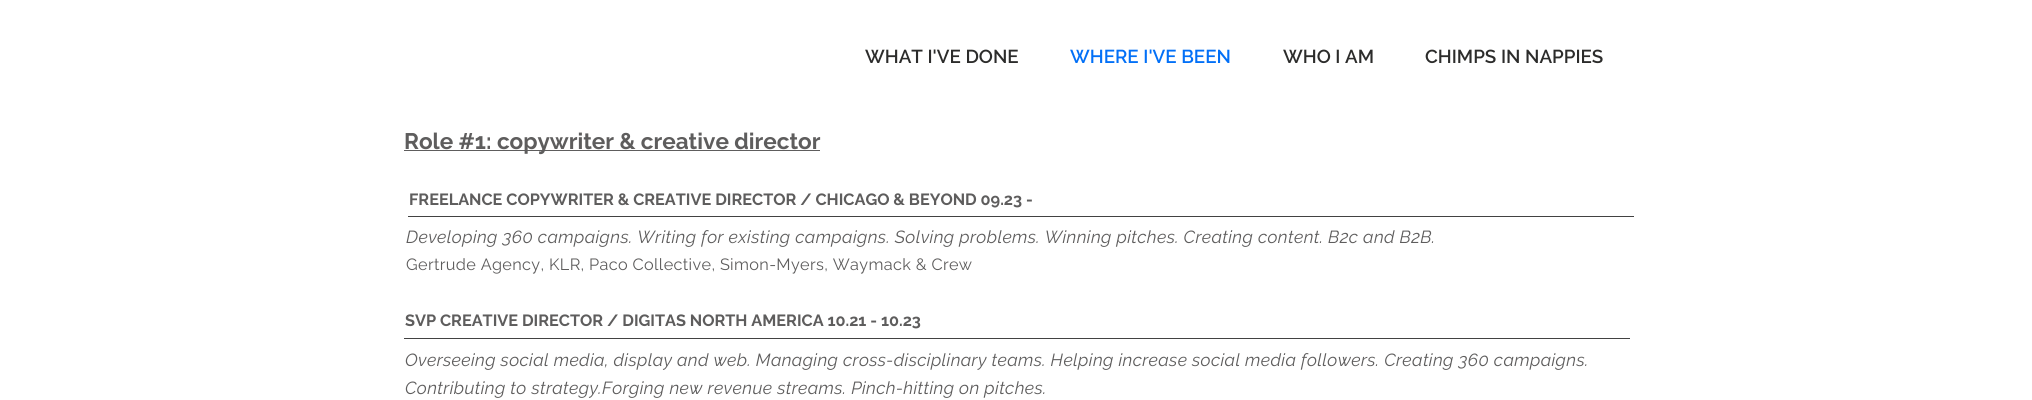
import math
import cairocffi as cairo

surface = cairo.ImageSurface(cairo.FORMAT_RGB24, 2032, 400)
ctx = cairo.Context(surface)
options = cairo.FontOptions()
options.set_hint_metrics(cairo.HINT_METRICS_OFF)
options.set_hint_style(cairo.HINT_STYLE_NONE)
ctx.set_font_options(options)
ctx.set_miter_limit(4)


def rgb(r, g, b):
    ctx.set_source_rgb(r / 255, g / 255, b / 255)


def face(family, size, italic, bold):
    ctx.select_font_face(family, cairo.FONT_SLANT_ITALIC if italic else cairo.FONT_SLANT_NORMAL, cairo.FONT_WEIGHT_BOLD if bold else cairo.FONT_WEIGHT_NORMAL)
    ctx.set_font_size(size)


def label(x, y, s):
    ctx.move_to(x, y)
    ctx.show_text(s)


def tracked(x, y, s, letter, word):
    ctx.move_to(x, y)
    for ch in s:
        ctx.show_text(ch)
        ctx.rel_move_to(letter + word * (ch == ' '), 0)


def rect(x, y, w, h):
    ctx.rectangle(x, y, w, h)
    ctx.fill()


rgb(255, 255, 255)
ctx.paint()
face('Raleway SemiBold', 18.75, 0, 0)
rgb(44, 44, 43)
label(865, 63, 'WHAT I\'VE DONE')
rgb(2, 112, 247)
label(1070, 63, 'WHERE I\'VE BEEN')
rgb(44, 44, 43)
label(1283, 63, 'WHO I AM')
label(1425, 63, 'CHIMPS IN NAPPIES')
rgb(94, 93, 93)
rect(404, 150, 416, 1)
face('Raleway', 22.5, 0, 1)
label(404, 149, 'Role #1: copywriter & creative director')
face('Raleway', 16.25, 0, 1)
label(409, 205, 'FREELANCE COPYWRITER & CREATIVE DIRECTOR / CHICAGO & BEYOND 09.23 -')
rgb(66, 66, 66)
rect(408, 216, 1226, 1)
face('Raleway', 17.5, 1, 0)
rgb(94, 93, 93)
tracked(406, 243, 'Developing 360 campaigns. Writing for existing campaigns. Solving problems. Winning pitches. Creating content. B2c and B2B.', 0.35, 0)
face('Raleway', 16.25, 0, 0)
tracked(406, 270, 'Gertrude Agency, KLR, Paco Collective, Simon-Myers, Waymack & Crew', 0.35, 0)
face('Raleway', 16.25, 0, 1)
label(405, 326, 'SVP CREATIVE DIRECTOR / DIGITAS NORTH AMERICA 10.21 - 10.23')
rgb(66, 66, 66)
rect(404, 338, 1226, 1)
face('Raleway', 17.5, 1, 0)
rgb(94, 93, 93)
tracked(405, 366, 'Overseeing social media, display and web. Managing cross-disciplinary teams. Helping increase social media followers. Creating 360 campaigns.', 0.35, 0)
tracked(405, 394, 'Contributing to strategy.Forging new revenue streams. Pinch-hitting on pitches.', 0.35, 0)
surface.write_to_png('render.png')
